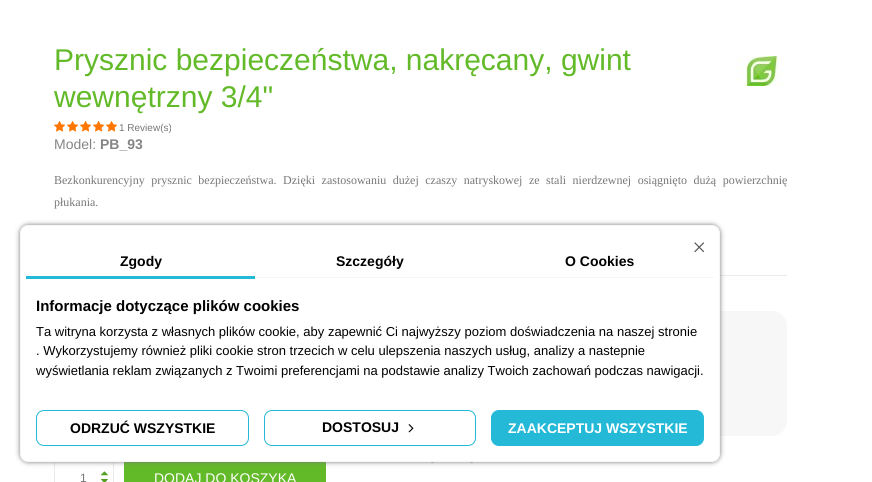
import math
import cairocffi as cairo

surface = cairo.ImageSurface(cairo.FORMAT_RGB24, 872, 482)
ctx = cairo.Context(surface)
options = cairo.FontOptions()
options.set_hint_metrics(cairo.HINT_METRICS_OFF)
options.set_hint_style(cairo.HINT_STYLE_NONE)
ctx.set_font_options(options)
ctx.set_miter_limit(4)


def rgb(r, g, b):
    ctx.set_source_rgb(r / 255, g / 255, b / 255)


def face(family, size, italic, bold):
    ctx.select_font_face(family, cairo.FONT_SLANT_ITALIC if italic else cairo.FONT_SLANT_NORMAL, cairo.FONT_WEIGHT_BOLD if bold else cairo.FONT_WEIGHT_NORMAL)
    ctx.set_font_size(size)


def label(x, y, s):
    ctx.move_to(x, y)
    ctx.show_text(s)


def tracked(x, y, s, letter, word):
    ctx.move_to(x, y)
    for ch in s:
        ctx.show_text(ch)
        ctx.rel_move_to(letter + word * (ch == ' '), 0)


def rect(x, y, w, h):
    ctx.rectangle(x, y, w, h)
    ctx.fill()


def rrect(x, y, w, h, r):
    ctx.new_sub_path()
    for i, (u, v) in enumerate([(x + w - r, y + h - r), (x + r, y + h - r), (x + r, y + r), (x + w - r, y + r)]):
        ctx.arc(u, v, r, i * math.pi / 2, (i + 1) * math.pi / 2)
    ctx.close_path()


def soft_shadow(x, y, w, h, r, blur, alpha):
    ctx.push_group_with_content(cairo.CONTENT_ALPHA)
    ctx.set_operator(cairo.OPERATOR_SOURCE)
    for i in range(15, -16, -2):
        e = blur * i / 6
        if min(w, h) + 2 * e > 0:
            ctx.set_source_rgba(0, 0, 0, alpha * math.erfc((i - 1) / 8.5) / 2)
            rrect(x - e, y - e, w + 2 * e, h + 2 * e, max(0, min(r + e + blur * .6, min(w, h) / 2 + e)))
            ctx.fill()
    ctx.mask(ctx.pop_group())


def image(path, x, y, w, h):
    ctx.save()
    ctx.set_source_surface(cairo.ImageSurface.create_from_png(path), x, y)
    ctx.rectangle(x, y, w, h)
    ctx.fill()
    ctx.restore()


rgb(255, 255, 255)
ctx.paint()
face('Liberation Sans', 30, 0, 0)
rgb(99, 186, 40)
label(54, 70, 'Prysznic bezpieczeństwa, nakręcany, gwint')
label(54, 107, 'wewnętrzny 3/4"')
image('image0.png', 737, 56, 48, 30)
image('image1.png', 54, 121, 12, 11)
image('image1.png', 67, 121, 12, 11)
image('image1.png', 80, 121, 12, 11)
image('image1.png', 93, 121, 12, 11)
image('image1.png', 106, 121, 12, 11)
face('Liberation Sans', 10, 0, 0)
rgb(119, 119, 119)
label(119, 131, '1 Review(s)')
face('Liberation Sans', 14, 0, 0)
rgb(133, 133, 133)
label(54, 149, 'Model:')
face('Liberation Sans', 14, 0, 1)
label(100, 149, 'PB_93')
face('Liberation Serif', 12, 0, 0)
rgb(119, 119, 119)
tracked(54, 184, 'Bezkonkurencyjny prysznic bezpieczeństwa. Dzięki zastosowaniu dużej czaszy natryskowej ze stali nierdzewnej osiągnięto dużą powierzchnię', 0, 3.5)
label(54, 206, 'płukania.')
rgb(235, 235, 235)
rect(720, 275, 67, 1)
rgb(247, 247, 247)
rrect(54, 311, 733, 125, 15)
ctx.fill()
ctx.rectangle(54.5, 458.5, 59, 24)
rgb(235, 235, 235)
ctx.set_line_width(1)
ctx.stroke()
face('Liberation Sans', 12, 0, 0)
rgb(119, 119, 119)
label(80, 482, '1')
image('image2.png', 101, 471, 7, 5)
image('image3.png', 101, 479, 7, 3)
rgb(99, 186, 40)
rect(124, 462, 202, 20)
face('Liberation Sans', 14, 0, 0)
rgb(255, 255, 255)
label(154, 483, 'DODAJ DO KOSZYKA')
rgb(173, 173, 173)
ctx.new_path()
ctx.move_to(452, 454)
ctx.line_to(472, 463)
ctx.line_to(473, 462)
ctx.line_to(452, 452)
ctx.close_path()
ctx.move_to(431, 462)
ctx.line_to(432, 463)
ctx.line_to(452, 454)
ctx.line_to(452, 452)
ctx.close_path()
ctx.fill()
rgb(119, 119, 119)
soft_shadow(20, 225, 700, 237, 8, 2.5, 1)
rgb(255, 255, 255)
rrect(20.5, 225.5, 699, 236, 7.5)
ctx.fill_preserve()
rgb(246, 246, 246)
ctx.stroke()
image('image4.png', 694, 242, 11, 11)
rect(255, 277, 459, 1)
rgb(36, 185, 215)
rect(26, 276, 229, 3)
face('Liberation Sans', 14, 0, 1)
rgb(0, 0, 0)
label(120, 266, 'Zgody')
label(336, 266, 'Szczegóły')
label(565, 266, 'O Cookies')
face('Liberation Sans', 15, 0, 1)
label(36, 311, 'Informacje dotyczące plików cookies')
face('Liberation Sans', 13, 0, 0)
label(36, 336, 'Ta witryna korzysta z własnych plików cookie, aby zapewnić Ci najwyższy poziom doświadczenia na naszej stronie')
label(36, 355, '. Wykorzystujemy również pliki cookie stron trzecich w celu ulepszenia naszych usług, analizy a nastepnie')
label(36, 375, 'wyświetlania reklam związanych z Twoimi preferencjami na podstawie analizy Twoich zachowań podczas nawigacji.')
rrect(36.5, 410.5, 212, 35, 7.5)
rgb(36, 185, 215)
ctx.stroke()
face('Liberation Sans', 14, 0, 1)
rgb(0, 0, 0)
label(70, 433, 'ODRZUĆ WSZYSTKIE')
rrect(264.5, 410.5, 211, 35, 7.5)
rgb(36, 185, 215)
ctx.stroke()
rgb(0, 0, 0)
label(322, 432, 'DOSTOSUJ')
image('image5.png', 408, 424, 6, 9)
rgb(36, 185, 215)
rrect(491.5, 410.5, 212, 35, 7.5)
ctx.fill_preserve()
ctx.stroke()
rgb(255, 255, 255)
label(508, 433, 'ZAAKCEPTUJ WSZYSTKIE')
surface.write_to_png('render.png')
